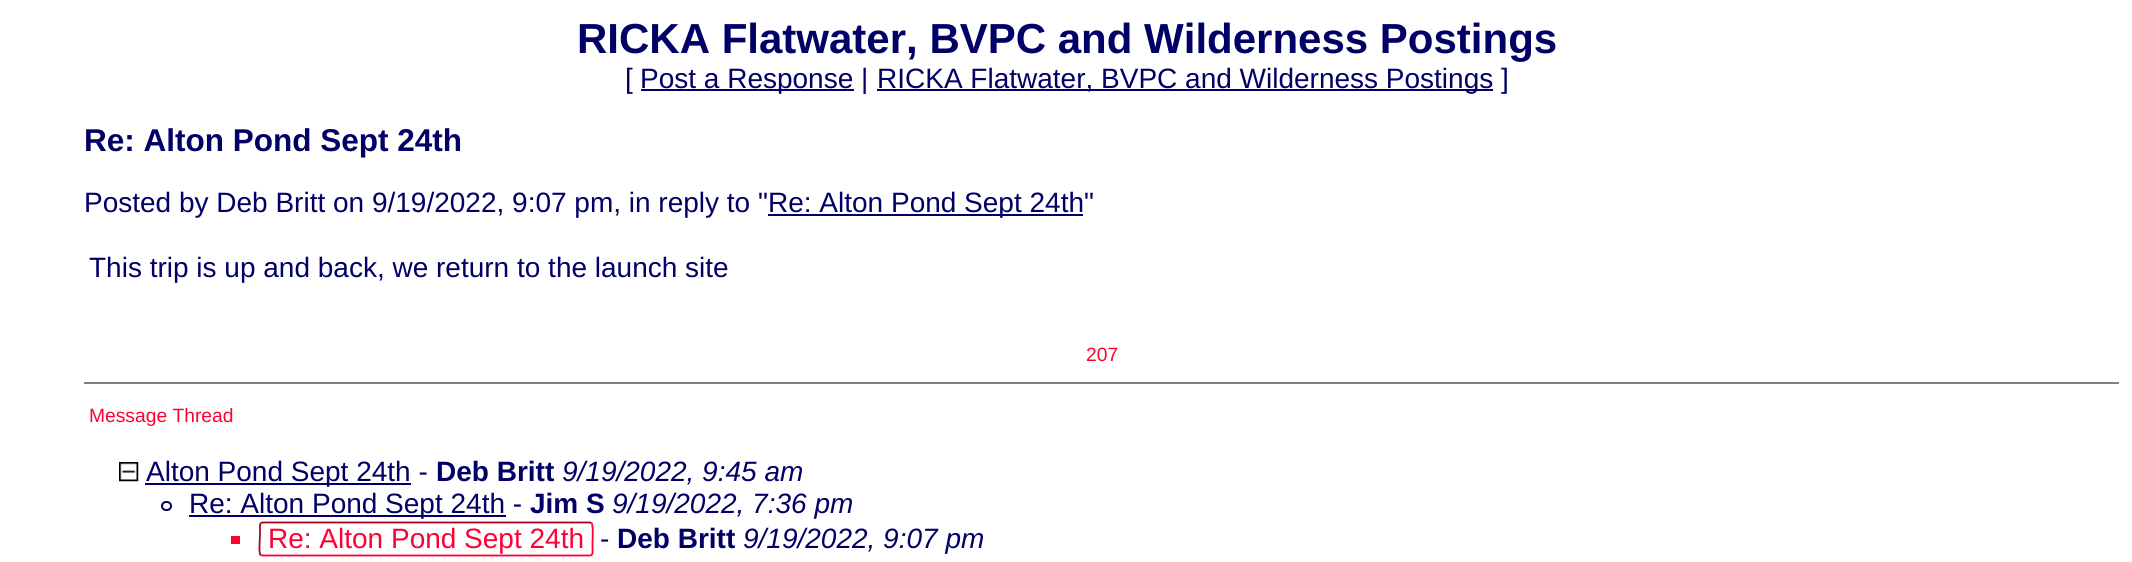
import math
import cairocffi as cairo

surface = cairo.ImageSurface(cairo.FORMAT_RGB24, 2132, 562)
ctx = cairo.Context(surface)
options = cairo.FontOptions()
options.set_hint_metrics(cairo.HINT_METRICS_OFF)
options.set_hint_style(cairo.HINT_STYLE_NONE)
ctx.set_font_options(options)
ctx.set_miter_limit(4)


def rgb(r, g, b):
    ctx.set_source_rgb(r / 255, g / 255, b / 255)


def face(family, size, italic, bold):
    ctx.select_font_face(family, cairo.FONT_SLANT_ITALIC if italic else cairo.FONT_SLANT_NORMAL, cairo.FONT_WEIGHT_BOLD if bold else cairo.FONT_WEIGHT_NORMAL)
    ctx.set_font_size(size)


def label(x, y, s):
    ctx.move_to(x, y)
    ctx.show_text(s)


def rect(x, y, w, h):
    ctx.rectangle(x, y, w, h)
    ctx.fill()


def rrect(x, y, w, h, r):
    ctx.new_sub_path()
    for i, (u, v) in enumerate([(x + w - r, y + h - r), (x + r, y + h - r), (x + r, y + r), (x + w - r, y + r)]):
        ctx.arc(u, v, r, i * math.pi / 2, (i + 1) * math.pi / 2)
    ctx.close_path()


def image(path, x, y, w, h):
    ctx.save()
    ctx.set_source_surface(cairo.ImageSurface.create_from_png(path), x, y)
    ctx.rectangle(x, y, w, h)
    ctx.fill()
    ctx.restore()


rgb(255, 255, 255)
ctx.paint()
face('Liberation Sans', 42, 0, 1)
rgb(0, 0, 102)
label(577, 53, 'RICKA Flatwater, BVPC and Wilderness Postings')
face('Liberation Sans', 28, 0, 0)
label(625, 88, '[')
rect(641, 89, 213, 2)
label(640, 88, 'Post a Response |')
rect(877, 89, 616, 2)
label(877, 88, 'RICKA Flatwater, BVPC and Wilderness Postings ]')
face('Liberation Sans', 31.5, 0, 1)
label(84, 151, 'Re: Alton Pond Sept 24th')
face('Liberation Sans', 28, 0, 0)
label(84, 212, 'Posted by Deb Britt on 9/19/2022, 9:07 pm, in reply to "')
rect(768, 214, 315, 2)
label(768, 212, 'Re: Alton Pond Sept 24th"')
label(89, 277, 'This trip is up and back, we return to the launch site')
face('Liberation Sans', 19.25, 0, 0)
rgb(255, 0, 51)
label(1086, 361, '207')
rgb(128, 128, 128)
rect(84, 382, 2035, 2)
rgb(255, 0, 51)
label(89, 422, 'Message Thread')
image('image0.png', 119, 462, 20, 20)
rgb(0, 0, 102)
rect(145, 483, 266, 2)
face('Liberation Sans', 28, 0, 0)
label(146, 481, 'Alton Pond Sept 24th -')
face('Liberation Sans', 28, 0, 1)
label(436, 481, 'Deb Britt')
face('Liberation Sans', 28, 1, 0)
label(562, 481, '9/19/2022, 9:45 am')
rrect(162, 502, 9, 8, 4)
ctx.stroke()
rect(189, 515, 317, 2)
face('Liberation Sans', 28, 0, 0)
label(189, 513, 'Re: Alton Pond Sept 24th -')
face('Liberation Sans', 28, 0, 1)
label(530, 513, 'Jim S')
face('Liberation Sans', 28, 1, 0)
label(612, 513, '9/19/2022, 7:36 pm')
rgb(255, 0, 51)
rect(231, 536, 9, 8)
ctx.new_path()
ctx.move_to(591.5, 523)
ctx.curve_to(593.5, 525, 592.5, 540.5, 592.5, 543.5)
ctx.line_to(592.5, 548.5)
ctx.curve_to(592.5, 550, 593.5, 555.5, 590, 555.5)
ctx.line_to(262.5, 555.5)
ctx.line_to(260.5, 555)
ctx.set_line_width(1.8)
ctx.stroke()
ctx.new_path()
ctx.move_to(260.5, 555)
ctx.curve_to(258.5, 553, 260, 537.5, 260, 534.5)
ctx.line_to(260, 529.5)
ctx.curve_to(260, 528, 259, 522.5, 262.5, 522.5)
ctx.line_to(590, 522.5)
ctx.line_to(591.5, 523)
rgb(170, 0, 34)
ctx.stroke()
face('Liberation Sans', 28, 0, 0)
rgb(255, 0, 51)
label(268, 548, 'Re: Alton Pond Sept 24th')
rgb(0, 0, 102)
label(600, 548, '-')
face('Liberation Sans', 28, 0, 1)
label(617, 548, 'Deb Britt')
face('Liberation Sans', 28, 1, 0)
label(743, 548, '9/19/2022, 9:07 pm')
surface.write_to_png('render.png')
